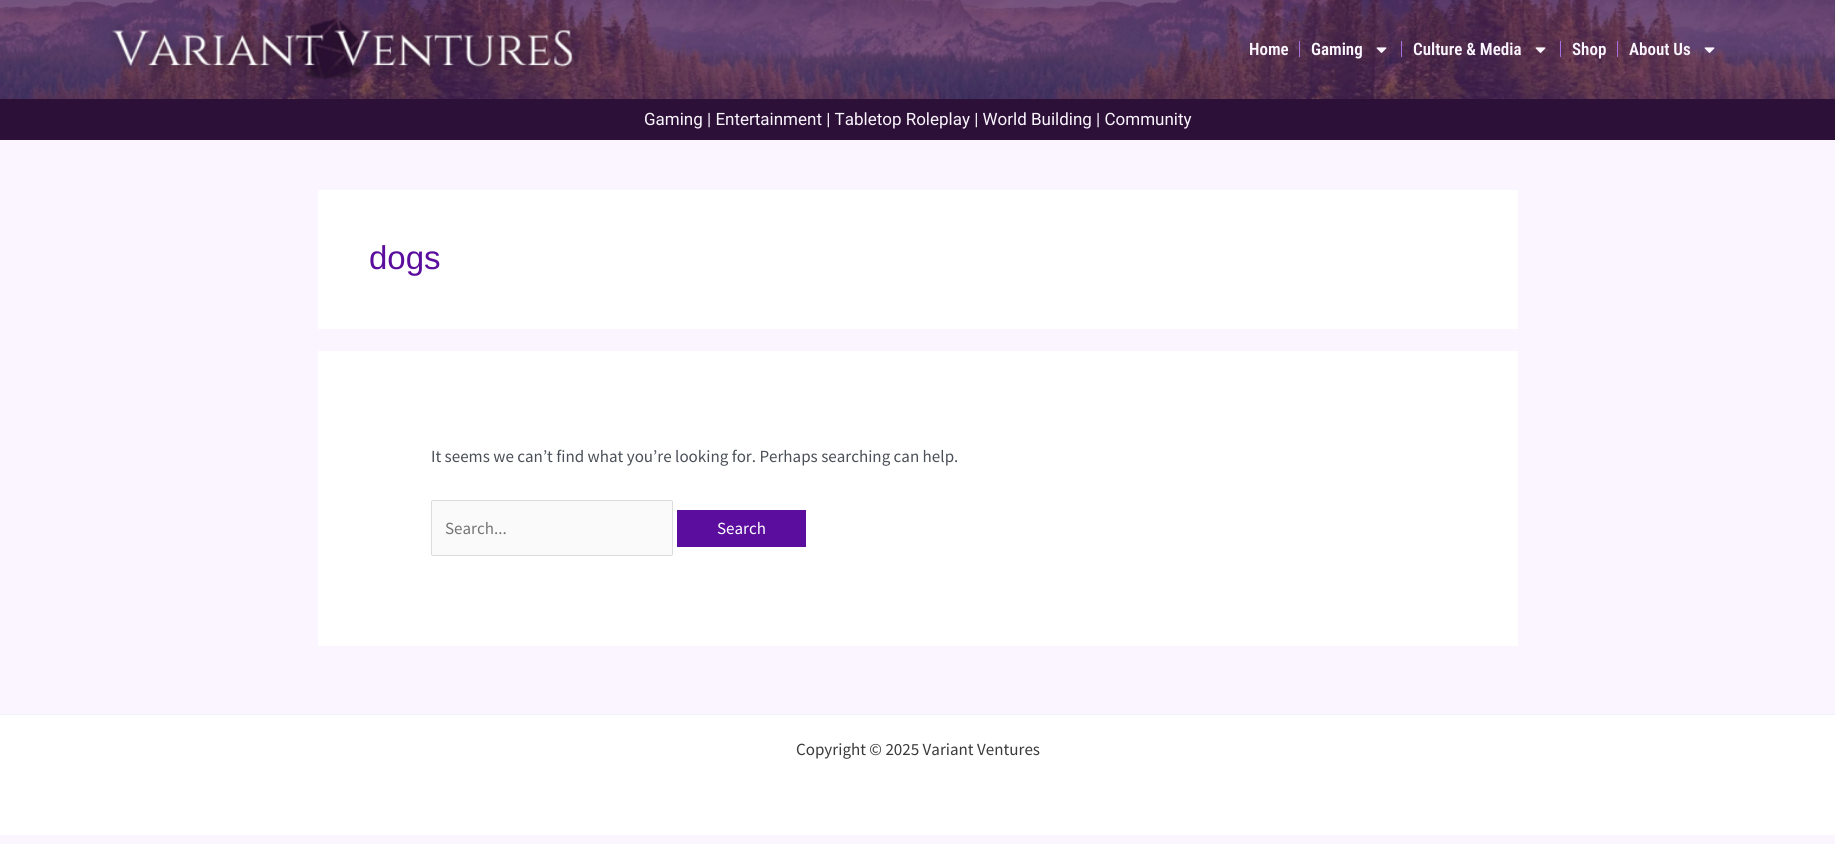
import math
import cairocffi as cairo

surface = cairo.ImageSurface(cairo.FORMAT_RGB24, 1835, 844)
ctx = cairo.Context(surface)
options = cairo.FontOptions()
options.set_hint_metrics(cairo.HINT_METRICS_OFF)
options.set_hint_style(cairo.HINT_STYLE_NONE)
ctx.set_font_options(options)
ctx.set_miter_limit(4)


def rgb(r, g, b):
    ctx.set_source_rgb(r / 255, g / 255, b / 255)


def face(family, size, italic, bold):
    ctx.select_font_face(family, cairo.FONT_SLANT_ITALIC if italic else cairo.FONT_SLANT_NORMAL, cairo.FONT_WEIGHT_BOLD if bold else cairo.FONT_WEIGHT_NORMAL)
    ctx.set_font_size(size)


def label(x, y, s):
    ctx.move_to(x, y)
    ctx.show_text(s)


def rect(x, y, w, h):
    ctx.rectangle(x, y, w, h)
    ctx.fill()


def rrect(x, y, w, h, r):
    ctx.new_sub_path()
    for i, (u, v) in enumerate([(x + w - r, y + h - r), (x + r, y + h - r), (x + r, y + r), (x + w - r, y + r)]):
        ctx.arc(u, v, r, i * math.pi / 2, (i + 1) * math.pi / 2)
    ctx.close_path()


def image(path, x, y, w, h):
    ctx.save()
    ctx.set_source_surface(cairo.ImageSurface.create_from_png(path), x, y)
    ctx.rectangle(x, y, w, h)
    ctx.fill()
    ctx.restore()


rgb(251, 245, 255)
ctx.paint()
rgb(74, 27, 93)
rect(0, 0, 1835, 99)
image('image0.png', 0, 0, 1835, 99)
image('image1.png', 110, 18, 467, 62)
face('Roboto Condensed SemiBold', 17, 0, 0)
rgb(251, 245, 255)
label(1249, 55, 'Home')
rgb(166, 110, 228)
rect(1299, 41, 1, 16)
rgb(251, 245, 255)
label(1311, 55, 'Gaming')
image('image2.png', 1376, 47, 11, 6)
rgb(166, 110, 228)
rect(1401, 41, 1, 16)
rgb(251, 245, 255)
label(1413, 55, 'Culture & Media')
image('image3.png', 1535, 47, 11, 6)
rgb(166, 110, 228)
rect(1560, 41, 1, 16)
rgb(251, 245, 255)
label(1572, 55, 'Shop')
rgb(166, 110, 228)
rect(1617, 41, 1, 16)
rgb(251, 245, 255)
label(1629, 55, 'About Us')
image('image4.png', 1704, 47, 11, 6)
rgb(44, 16, 55)
rect(0, 99, 1835, 41)
face('Roboto', 17, 0, 0)
rgb(251, 245, 255)
label(644, 125, 'Gaming | Entertainment | Tabletop Roleplay | World Building | Community')
rgb(255, 255, 255)
rect(318, 190, 1200, 139)
face('Liberation Sans', 33, 0, 0)
rgb(91, 13, 157)
label(369, 269, 'dogs')
rgb(255, 255, 255)
rect(318, 351, 1200, 295)
face('Source Sans Pro', 17, 0, 0)
rgb(75, 79, 88)
label(431, 462, 'It seems we can’t find what you’re looking for. Perhaps searching can help.')
rgb(250, 250, 250)
rrect(431.5, 500.5, 241, 55, 1.5)
ctx.fill_preserve()
rgb(221, 221, 221)
ctx.set_line_width(1)
ctx.stroke()
rgb(117, 117, 117)
label(445, 534, 'Search...')
rgb(91, 13, 157)
rect(677, 510, 129, 37)
rgb(255, 255, 255)
label(717, 534, 'Search')
rect(0, 715, 1835, 120)
rgb(242, 245, 247)
rect(0, 714, 1835, 1)
rgb(58, 58, 58)
label(796, 755, 'Copyright © 2025 Variant Ventures')
surface.write_to_png('render.png')
